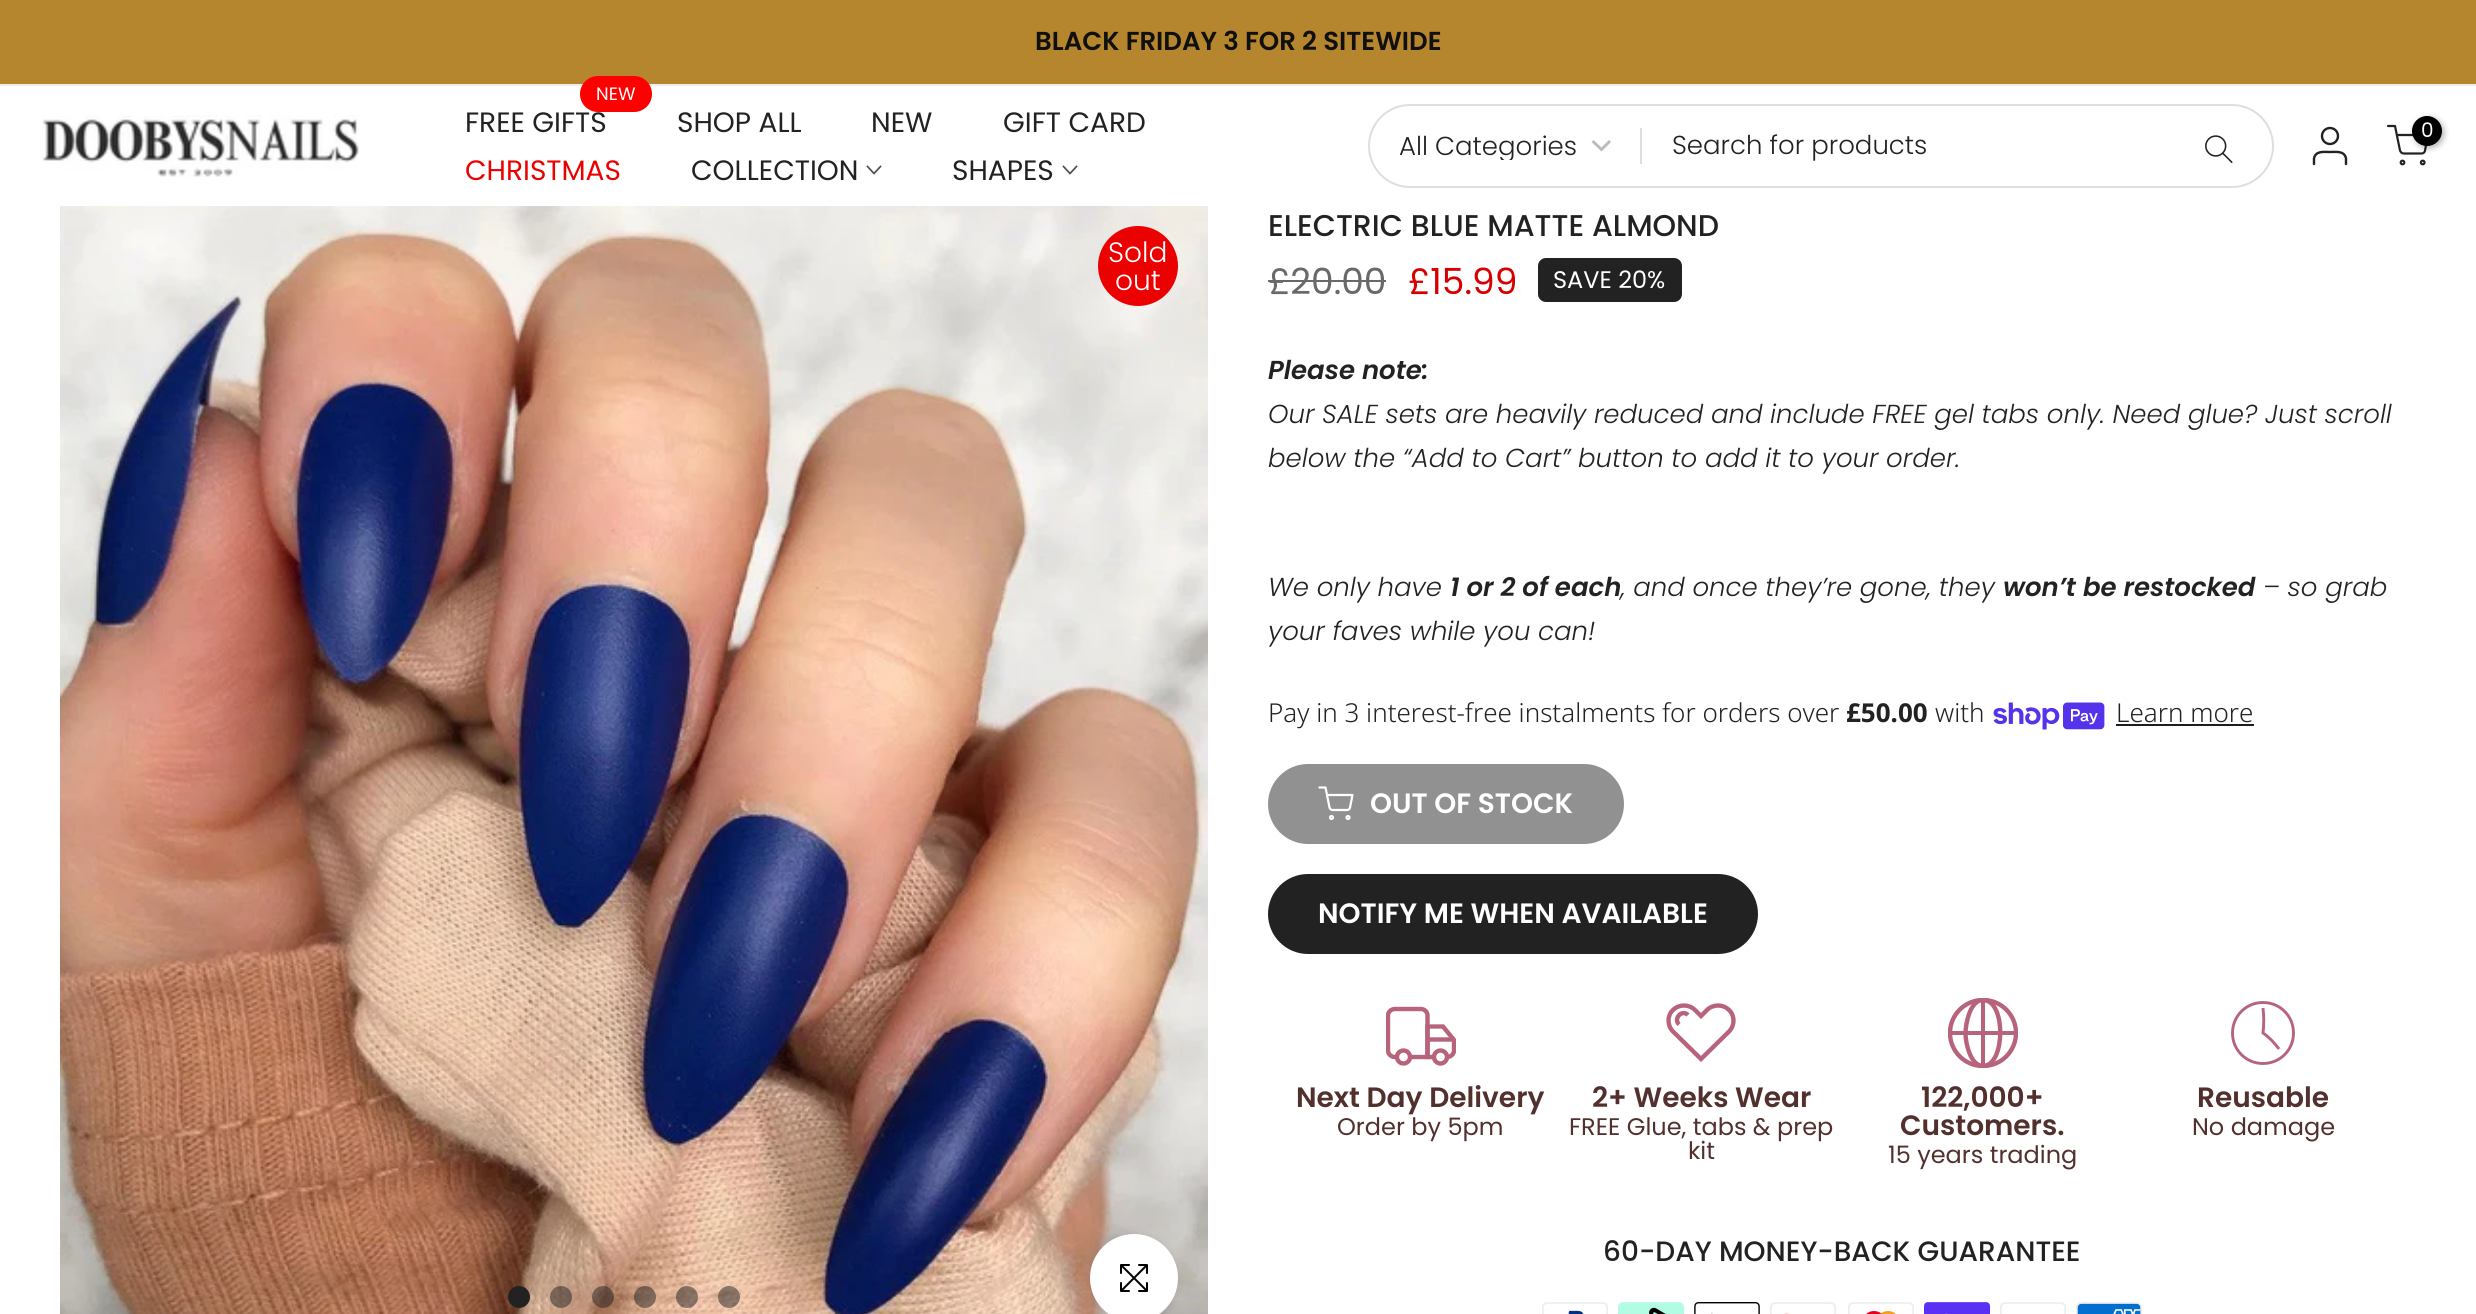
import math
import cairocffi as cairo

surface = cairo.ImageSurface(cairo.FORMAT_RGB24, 2476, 1314)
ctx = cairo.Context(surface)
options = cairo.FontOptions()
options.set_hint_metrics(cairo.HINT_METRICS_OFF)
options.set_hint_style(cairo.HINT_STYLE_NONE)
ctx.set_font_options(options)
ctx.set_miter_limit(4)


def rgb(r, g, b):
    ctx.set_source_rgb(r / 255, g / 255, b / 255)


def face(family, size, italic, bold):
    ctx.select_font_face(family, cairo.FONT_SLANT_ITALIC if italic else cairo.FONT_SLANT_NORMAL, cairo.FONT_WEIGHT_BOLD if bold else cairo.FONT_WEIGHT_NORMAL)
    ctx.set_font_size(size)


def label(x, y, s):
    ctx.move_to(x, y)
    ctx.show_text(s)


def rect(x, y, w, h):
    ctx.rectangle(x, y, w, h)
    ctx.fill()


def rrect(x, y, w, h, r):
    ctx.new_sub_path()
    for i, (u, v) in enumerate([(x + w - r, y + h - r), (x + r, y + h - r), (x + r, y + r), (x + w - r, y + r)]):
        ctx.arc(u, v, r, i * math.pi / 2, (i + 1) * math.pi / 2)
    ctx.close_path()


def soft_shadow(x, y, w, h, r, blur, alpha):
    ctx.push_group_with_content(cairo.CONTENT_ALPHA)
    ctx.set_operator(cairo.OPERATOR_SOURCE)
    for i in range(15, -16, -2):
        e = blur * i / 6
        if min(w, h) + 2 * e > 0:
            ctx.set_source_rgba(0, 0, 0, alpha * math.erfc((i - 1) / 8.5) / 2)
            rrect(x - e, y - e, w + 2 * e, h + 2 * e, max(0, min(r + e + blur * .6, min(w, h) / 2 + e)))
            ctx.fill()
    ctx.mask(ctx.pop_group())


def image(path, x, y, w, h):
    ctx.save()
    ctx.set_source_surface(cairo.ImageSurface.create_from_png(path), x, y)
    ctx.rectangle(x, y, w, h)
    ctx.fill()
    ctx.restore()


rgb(255, 255, 255)
ctx.paint()
rgb(182, 134, 46)
rect(0, 0, 2476, 84)
rgb(237, 237, 237)
rect(0, 84, 2476, 2)
face('Poppins SemiBold', 26, 0, 0)
rgb(16, 16, 16)
label(1035, 50, 'BLACK FRIDAY 3 FOR 2 SITEWIDE')
image('image0.png', 42, 115, 317, 62)
rgb(255, 0, 0)
rrect(580, 76, 72, 36, 18)
ctx.fill()
face('Poppins', 18, 0, 0)
rgb(255, 255, 255)
label(596, 100, 'NEW')
face('Poppins', 28, 0, 0)
rgb(34, 34, 34)
label(465, 132, 'FREE GIFTS')
label(677, 132, 'SHOP ALL')
label(871, 132, 'NEW')
label(1003, 132, 'GIFT CARD')
rgb(236, 1, 1)
label(465, 180, 'CHRISTMAS')
rgb(34, 34, 34)
label(691, 180, 'COLLECTION')
ctx.new_path()
ctx.move_to(880.5, 166.5)
ctx.line_to(874, 173.5)
ctx.line_to(867.5, 166.5)
rgb(78, 78, 78)
ctx.set_line_width(1.7)
ctx.set_line_cap(cairo.LINE_CAP_SQUARE)
ctx.stroke()
rgb(34, 34, 34)
label(952, 180, 'SHAPES')
ctx.new_path()
ctx.move_to(1076.5, 166.5)
ctx.line_to(1070, 173.5)
ctx.line_to(1063.5, 166.5)
rgb(78, 78, 78)
ctx.stroke()
rrect(1369, 105, 904, 82, 41)
rgb(222, 222, 222)
ctx.set_line_width(2)
ctx.set_line_cap(cairo.LINE_CAP_BUTT)
ctx.stroke()
ctx.new_path()
ctx.move_to(1592.5, 141)
ctx.line_to(1601.5, 149.5)
ctx.line_to(1610, 141)
rgb(187, 187, 187)
ctx.set_line_width(2.9)
ctx.stroke()
ctx.save()
ctx.rectangle(1400, 134, 180, 26)
ctx.clip()
face('Poppins Light', 26, 0, 0)
rgb(34, 34, 34)
label(1399, 155, 'All Categories')
ctx.restore()
rgb(222, 222, 222)
rect(1640, 128, 2, 36)
face('Poppins Light', 26, 0, 0)
rgb(34, 34, 34)
label(1672, 154, 'Search for products')
image('image1.png', 2205, 135, 28, 28)
ctx.arc(2330, 136, 8, 0, 2 * math.pi)
ctx.set_line_width(2.4)
ctx.stroke()
ctx.new_path()
ctx.move_to(2346, 164)
ctx.line_to(2346, 158.5)
ctx.curve_to(2344.5, 150.5, 2336, 152, 2330, 152)
ctx.curve_to(2324, 152, 2315.5, 150.5, 2314, 158.5)
ctx.line_to(2314, 164)
ctx.set_line_cap(cairo.LINE_CAP_ROUND)
ctx.set_line_join(cairo.LINE_JOIN_ROUND)
ctx.stroke()
ctx.new_path()
ctx.move_to(2388, 126)
ctx.line_to(2395, 126)
ctx.line_to(2400, 150.5)
ctx.curve_to(2400.5, 152, 2402, 153.5, 2403.5, 153.5)
ctx.line_to(2421.5, 153.5)
ctx.curve_to(2423.5, 153.5, 2425, 152, 2425, 150.5)
ctx.line_to(2428, 135)
ctx.line_to(2397, 135)
ctx.set_line_width(2.2)
ctx.stroke()
rgb(0, 0, 0)
soft_shadow(2414, 118, 30, 30, 15, 3, 0.3)
rgb(0, 0, 0)
ctx.arc(2427, 131, 15, 0, 2 * math.pi)
ctx.fill()
face('Poppins', 20, 0, 0)
rgb(255, 255, 255)
label(2421, 137, '0')
ctx.new_path()
ctx.arc(2402.5, 162.5, 1.8, 0, 2 * math.pi)
rgb(34, 34, 34)
ctx.set_line_cap(cairo.LINE_CAP_BUTT)
ctx.set_line_join(cairo.LINE_JOIN_MITER)
ctx.stroke()
ctx.arc(2422.7, 162.5, 1.8, 0, 2 * math.pi)
ctx.stroke()
image('image2.png', 60, 206, 1148, 1108)
ctx.arc(519, 1297, 11, 0, 2 * math.pi)
ctx.fill()
ctx.set_source_rgba(0.133, 0.133, 0.133, 0.5)
ctx.arc(561, 1297, 11, 0, 2 * math.pi)
ctx.fill()
ctx.arc(603, 1297, 11, 0, 2 * math.pi)
ctx.fill()
ctx.arc(645, 1297, 11, 0, 2 * math.pi)
ctx.fill()
ctx.arc(687, 1297, 11, 0, 2 * math.pi)
ctx.fill()
ctx.arc(729, 1297, 11, 0, 2 * math.pi)
ctx.fill()
rgb(236, 1, 1)
ctx.arc(1138, 266, 40, 0, 2 * math.pi)
ctx.fill()
face('Poppins Light', 28, 0, 0)
rgb(255, 255, 255)
label(1108, 262, 'Sold')
label(1115, 290, 'out')
rgb(0, 0, 0)
soft_shadow(1090, 1234, 88, 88, 44, 5, 0.09)
rgb(255, 255, 255)
ctx.arc(1134, 1278, 44, 0, 2 * math.pi)
ctx.fill()
image('image3.png', 1120, 1264, 28, 28)
face('Poppins Medium', 30, 0, 0)
rgb(34, 34, 34)
label(1268, 236, 'ELECTRIC BLUE MATTE ALMOND')
face('Poppins', 36, 0, 0)
rgb(105, 105, 105)
label(1268, 294, '£20.00')
rect(1268, 280, 118, 2)
rgb(215, 0, 0)
label(1408, 294, '£15.99')
rgb(34, 34, 34)
rrect(1538, 258, 144, 44, 8)
ctx.fill()
face('Poppins', 24, 0, 0)
rgb(255, 255, 255)
label(1553, 288, 'SAVE 20%')
face('Poppins SemiBold', 26, 1, 0)
rgb(34, 34, 34)
label(1268, 379, 'Please note:')
face('Poppins Light', 26, 1, 0)
label(1268, 423, 'Our SALE sets are heavily reduced and include FREE gel tabs only. Need glue? Just scroll')
label(1268, 467, 'below the “Add to Cart” button to add it to your order.')
label(1268, 596, 'We only have')
face('Poppins SemiBold', 26, 1, 0)
label(1450, 596, '1 or 2 of each')
face('Poppins Light', 26, 1, 0)
label(1621, 596, ', and once they’re gone, they')
face('Poppins SemiBold', 26, 1, 0)
label(2003, 596, 'won’t be restocked')
face('Poppins Light', 26, 1, 0)
label(2263, 596, '– so grab')
label(1268, 640, 'your faves while you can!')
face('Noto Sans Light', 26, 0, 0)
label(1268, 722, 'Pay in 3 interest-free instalments for orders over')
face('Noto Sans', 26, 0, 1)
label(1846, 722, '£50.00')
face('Noto Sans Light', 26, 0, 0)
label(1935, 722, 'with')
image('image4.png', 1993, 702, 112, 28)
label(2116, 722, 'Learn more')
rgb(29, 29, 29)
rect(2116, 724, 138, 2)
rgb(145, 145, 145)
rrect(1268, 764, 356, 80, 40)
ctx.fill()
ctx.arc(1331.5, 817.5, 1.5, 0, 2 * math.pi)
rgb(255, 255, 255)
ctx.stroke()
ctx.arc(1348, 817.5, 1.5, 0, 2 * math.pi)
ctx.stroke()
ctx.new_path()
ctx.move_to(1319.5, 787.5)
ctx.line_to(1325.5, 787.5)
ctx.line_to(1329.5, 807.5)
ctx.curve_to(1330, 809, 1331, 810, 1332.5, 810)
ctx.line_to(1347, 810)
ctx.curve_to(1348.5, 810, 1350, 809, 1350, 807.5)
ctx.line_to(1352.5, 795)
ctx.line_to(1327, 795)
ctx.set_line_cap(cairo.LINE_CAP_ROUND)
ctx.set_line_join(cairo.LINE_JOIN_ROUND)
ctx.stroke()
face('Poppins SemiBold', 28, 0, 0)
label(1370, 813, 'OUT OF STOCK')
rgb(34, 34, 34)
rrect(1268, 874, 490, 80, 40)
ctx.fill()
rgb(255, 255, 255)
label(1318, 923, 'NOTIFY ME WHEN AVAILABLE')
ctx.new_path()
ctx.arc(1440.5, 1057, 6.5, 0, 2 * math.pi)
rgb(182, 99, 123)
ctx.set_line_width(4.4)
ctx.set_line_cap(cairo.LINE_CAP_BUTT)
ctx.set_line_join(cairo.LINE_JOIN_MITER)
ctx.stroke()
ctx.arc(1403.5, 1057, 6.5, 0, 2 * math.pi)
ctx.stroke()
ctx.save()
ctx.rectangle(1386, 998, 70, 70)
ctx.clip()
ctx.new_path()
ctx.move_to(1397, 1057)
ctx.line_to(1395, 1057)
ctx.curve_to(1391, 1057, 1388, 1054, 1388, 1050.5)
ctx.line_to(1388, 1015.5)
ctx.curve_to(1388, 1012, 1391, 1009, 1395, 1009)
ctx.line_to(1421, 1009)
ctx.curve_to(1424.5, 1009, 1427.5, 1012, 1427.5, 1015.5)
ctx.line_to(1427.5, 1057)
ctx.line_to(1410, 1057)
ctx.stroke()
ctx.new_path()
ctx.move_to(1434, 1057)
ctx.line_to(1427.5, 1057)
ctx.line_to(1427.5, 1026.5)
ctx.line_to(1443, 1026.5)
ctx.line_to(1454, 1040)
ctx.line_to(1454, 1050.5)
ctx.curve_to(1454, 1054, 1451, 1057, 1447, 1057)
ctx.stroke()
ctx.restore()
ctx.new_path()
ctx.move_to(1454, 1039.5)
ctx.line_to(1427.5, 1039.5)
ctx.stroke()
rgb(82, 48, 46)
label(1296, 1107, 'Next Day Delivery')
face('Poppins', 24, 0, 0)
label(1337, 1135, 'Order by 5pm')
ctx.new_path()
ctx.move_to(1701, 1059)
ctx.line_to(1673, 1031.5)
ctx.curve_to(1667, 1025.5, 1667, 1015.5, 1673, 1010)
ctx.curve_to(1679, 1004, 1689, 1004, 1695, 1010)
ctx.line_to(1701, 1016)
ctx.line_to(1707, 1010)
ctx.curve_to(1713, 1004, 1723, 1004, 1729, 1010)
ctx.curve_to(1735, 1015.5, 1735, 1025.5, 1729, 1031.5)
ctx.close_path()
rgb(182, 99, 123)
ctx.stroke()
ctx.new_path()
ctx.move_to(1679, 1024.5)
ctx.curve_to(1673, 1018.5, 1682, 1009, 1688, 1015)
ctx.stroke()
face('Poppins SemiBold', 28, 0, 0)
rgb(82, 48, 46)
label(1592, 1107, '2+ Weeks Wear')
face('Poppins', 24, 0, 0)
label(1569, 1135, 'FREE Glue, tabs & prep')
label(1688, 1159, 'kit')
ctx.save()
ctx.rectangle(1948, 998, 70, 70)
ctx.clip()
ctx.arc(1983, 1033, 33, 0, 2 * math.pi)
rgb(182, 99, 123)
ctx.stroke()
ctx.restore()
rgb(182, 99, 123)
rect(1981, 1000, 4, 66)
rect(1950, 1031, 66, 4)
ctx.save()
ctx.rectangle(1948, 998, 70, 70)
ctx.clip()
ctx.new_path()
ctx.move_to(1983, 1066)
ctx.curve_to(2005.5, 1066, 2006.5, 1000, 1983, 1000)
ctx.curve_to(1970, 1000, 1965.5, 1024, 1965.5, 1033.5)
ctx.curve_to(1965.5, 1043, 1970.5, 1066, 1983, 1066)
ctx.close_path()
ctx.stroke()
ctx.restore()
face('Poppins SemiBold', 28, 0, 0)
rgb(82, 48, 46)
label(1921, 1107, '122,000+')
label(1900, 1135, 'Customers.')
face('Poppins', 24, 0, 0)
label(1888, 1163, '15 years trading')
ctx.new_path()
ctx.move_to(2279, 1049)
ctx.curve_to(2274.5, 1043, 2269.5, 1037.5, 2263, 1033)
ctx.curve_to(2264, 1024.5, 2264, 1016.5, 2263, 1008)
ctx.move_to(2293.5, 1033)
ctx.curve_to(2293.5, 1016, 2280, 1002.5, 2263, 1002.5)
ctx.curve_to(2246, 1002.5, 2232.5, 1016, 2232.5, 1033)
ctx.curve_to(2232.5, 1050, 2246, 1063.5, 2263, 1063.5)
ctx.curve_to(2280, 1063.5, 2293.5, 1050, 2293.5, 1033)
ctx.close_path()
rgb(182, 99, 123)
ctx.set_line_width(2.9)
ctx.stroke()
face('Poppins SemiBold', 28, 0, 0)
rgb(82, 48, 46)
label(2197, 1107, 'Reusable')
face('Poppins', 24, 0, 0)
label(2192, 1135, 'No damage')
face('Poppins Medium', 28, 0, 0)
rgb(34, 34, 34)
label(1603, 1261, '60-DAY MONEY-BACK GUARANTEE')
image('image5.png', 1542, 1302, 66, 12)
image('image6.png', 1618, 1302, 66, 12)
image('image7.png', 1694, 1302, 66, 12)
image('image8.png', 1770, 1302, 66, 12)
image('image9.png', 1848, 1302, 66, 12)
image('image10.png', 1924, 1302, 66, 12)
image('image11.png', 2000, 1302, 66, 12)
image('image12.png', 2076, 1302, 66, 12)
surface.write_to_png('render.png')
